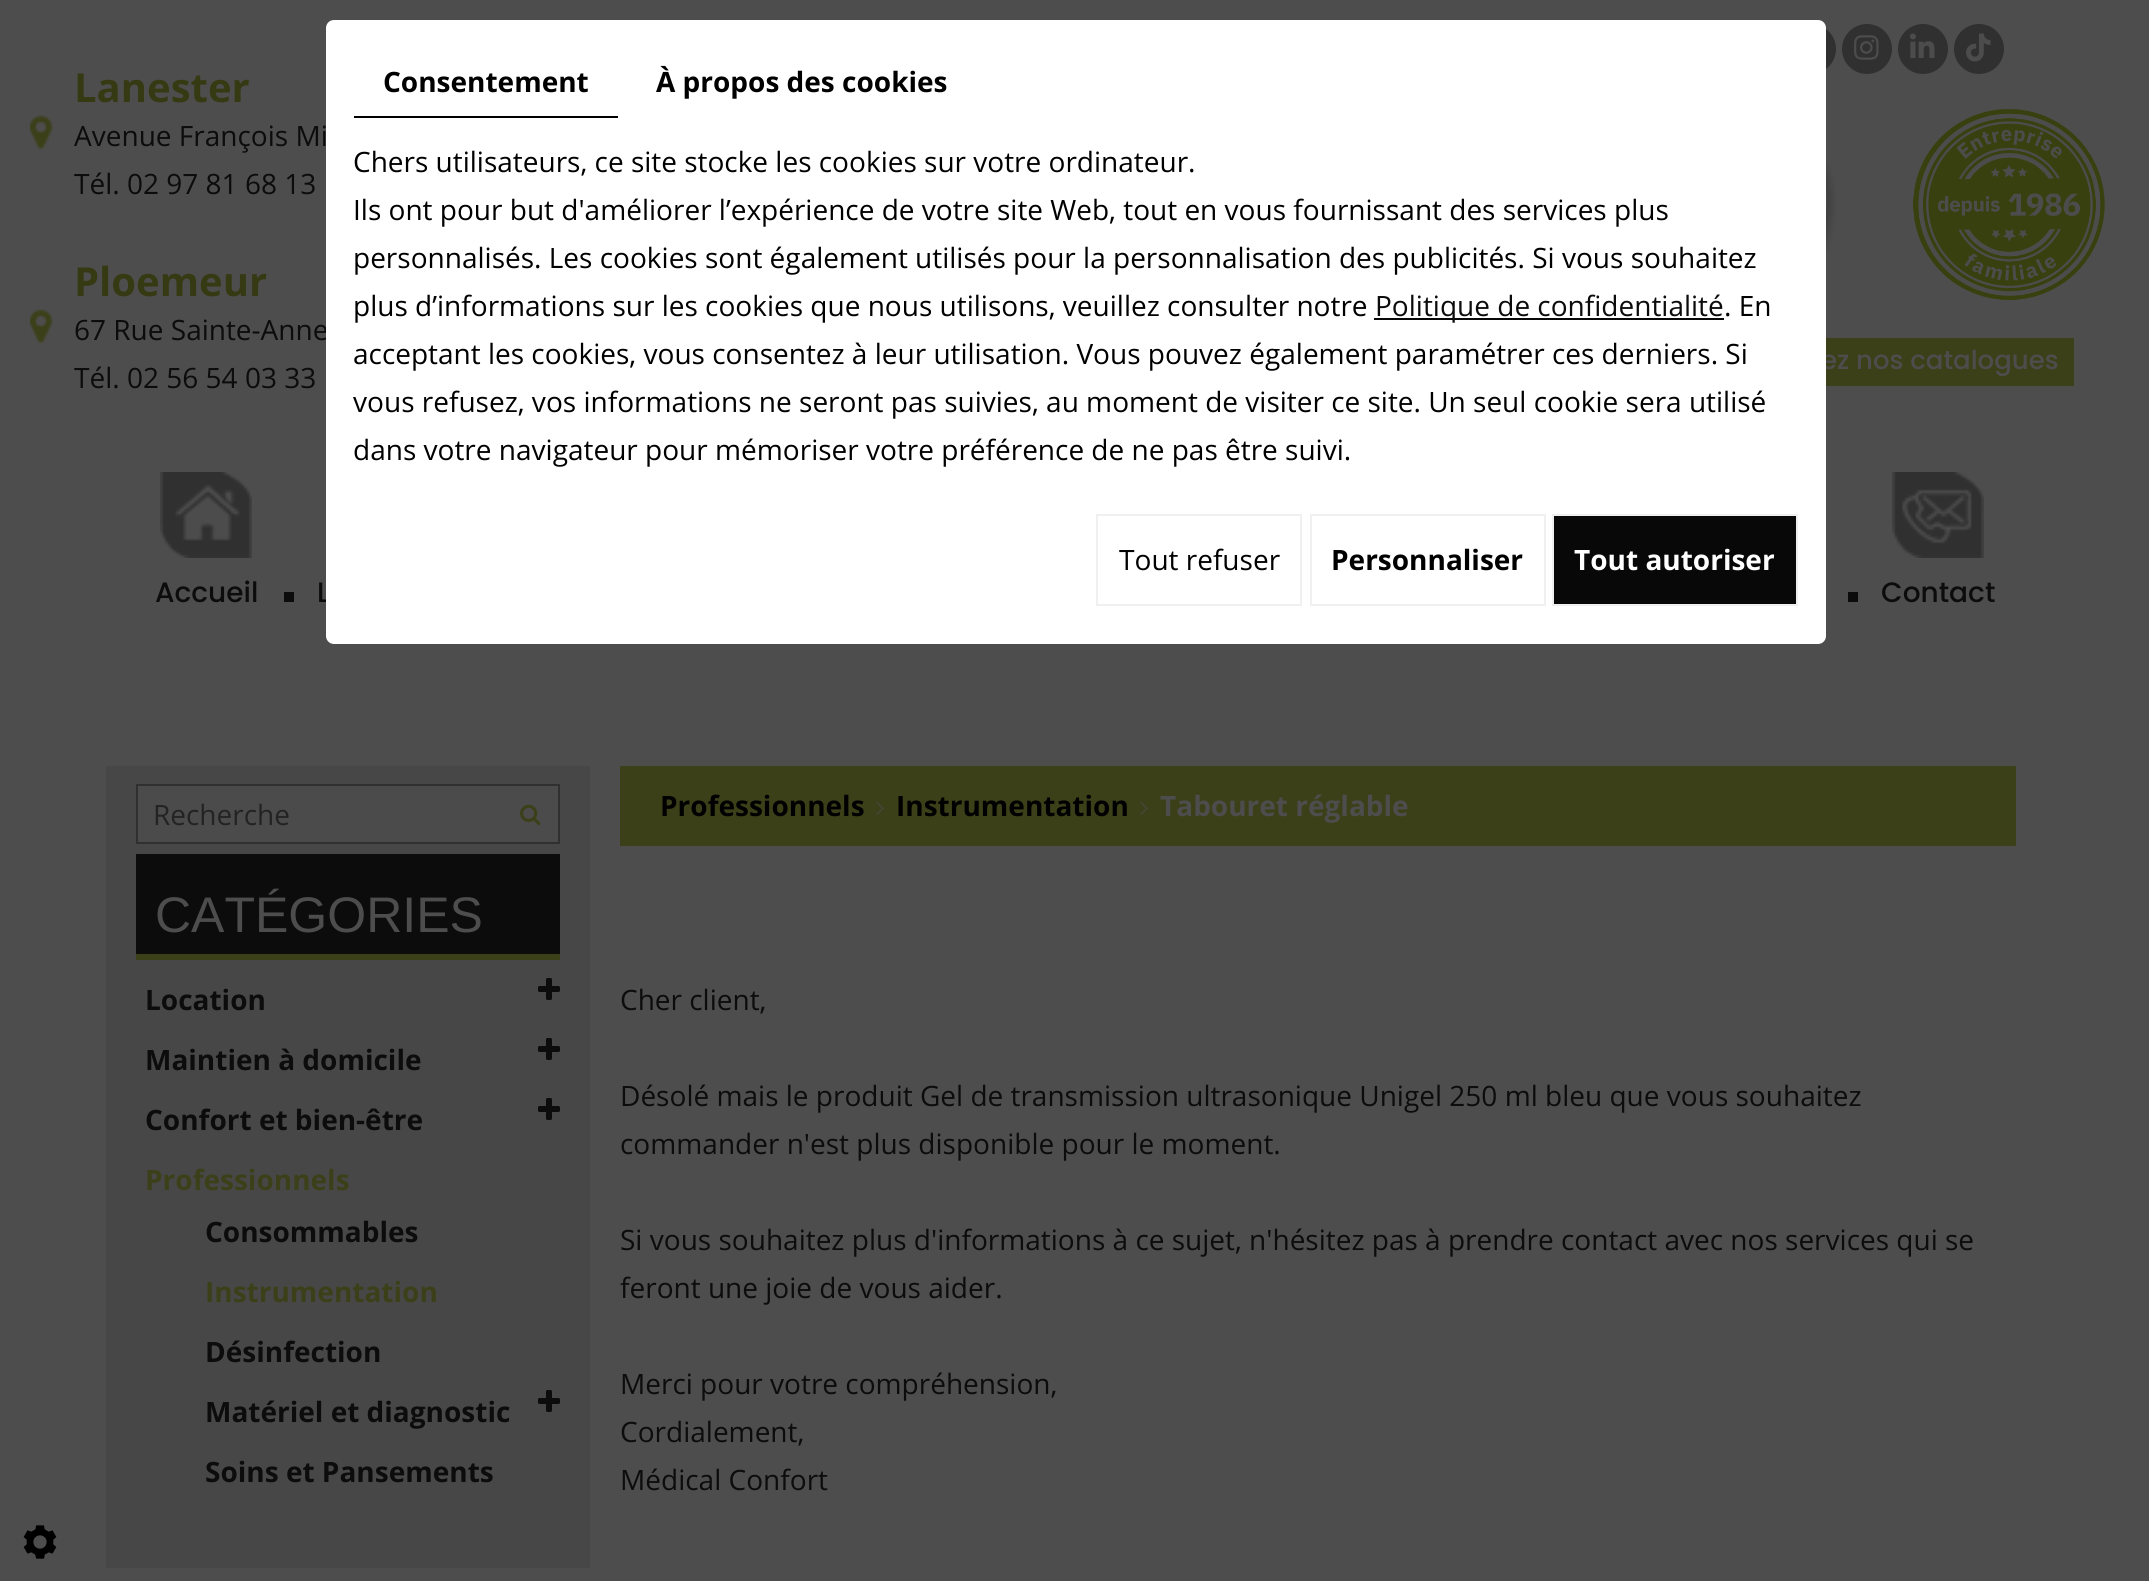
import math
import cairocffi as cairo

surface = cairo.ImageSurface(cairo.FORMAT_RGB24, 2149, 1581)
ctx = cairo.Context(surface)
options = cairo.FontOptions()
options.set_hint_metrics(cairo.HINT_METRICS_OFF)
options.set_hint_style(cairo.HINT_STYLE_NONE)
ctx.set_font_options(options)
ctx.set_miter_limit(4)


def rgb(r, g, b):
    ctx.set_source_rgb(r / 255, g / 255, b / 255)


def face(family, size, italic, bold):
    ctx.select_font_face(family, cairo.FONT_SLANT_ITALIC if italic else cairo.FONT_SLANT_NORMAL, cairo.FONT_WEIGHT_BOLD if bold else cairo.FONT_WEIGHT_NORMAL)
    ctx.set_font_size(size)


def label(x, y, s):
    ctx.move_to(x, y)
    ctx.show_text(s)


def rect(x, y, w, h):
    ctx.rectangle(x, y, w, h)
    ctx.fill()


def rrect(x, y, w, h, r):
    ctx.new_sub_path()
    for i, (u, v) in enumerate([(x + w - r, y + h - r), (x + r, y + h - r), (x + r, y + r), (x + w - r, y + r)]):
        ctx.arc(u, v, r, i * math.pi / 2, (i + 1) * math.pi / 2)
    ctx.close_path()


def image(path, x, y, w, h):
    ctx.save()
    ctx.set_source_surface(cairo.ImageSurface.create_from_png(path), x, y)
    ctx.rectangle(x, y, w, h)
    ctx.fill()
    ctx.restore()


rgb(77, 77, 77)
ctx.paint()
face('Open Sans', 28, 0, 0)
rgb(12, 12, 12)
label(74, 340, '67 Rue Sainte-Anne')
rgb(48, 48, 49)
ctx.new_path()
ctx.arc(1811, 49, 25, 0, 2 * math.pi)
ctx.fill()
rgb(59, 64, 25)
rect(1826, 338, 248, 48)
face('Poppins Medium', 26, 0, 0)
rgb(77, 77, 77)
label(1821, 369, 'ez nos catalogues')
face('Poppins Medium', 28, 0, 0)
rgb(12, 12, 12)
label(317, 602, 'L')
rgb(255, 255, 255)
rrect(326, 20, 1500, 624, 8)
ctx.fill()
rgb(0, 0, 0)
rect(354, 116, 264, 2)
face('Open Sans', 28, 0, 1)
label(383, 92, 'Consentement')
label(656, 92, 'À propos des cookies')
face('Open Sans', 28, 0, 0)
label(353, 172, 'Chers utilisateurs, ce site stocke les cookies sur votre ordinateur.')
label(353, 220, 'Ils ont pour but d\'améliorer l’expérience de votre site Web, tout en vous fournissant des services plus')
label(353, 268, 'personnalisés. Les cookies sont également utilisés pour la personnalisation des publicités. Si vous souhaitez')
label(353, 316, 'plus d’informations sur les cookies que nous utilisons, veuillez consulter notre')
rgb(8, 8, 8)
rect(1374, 318, 350, 2)
rgb(12, 12, 12)
label(1375, 316, 'Politique de confidentialité')
rgb(0, 0, 0)
label(1724, 316, '. En')
label(353, 364, 'acceptant les cookies, vous consentez à leur utilisation. Vous pouvez également paramétrer ces derniers. Si')
label(353, 412, 'vous refusez, vos informations ne seront pas suivies, au moment de visiter ce site. Un seul cookie sera utilisé')
label(353, 460, 'dans votre navigateur pour mémoriser votre préférence de ne pas être suivi.')
ctx.rectangle(1097, 515, 204, 90)
rgb(240, 240, 240)
ctx.stroke()
rgb(0, 0, 0)
label(1119, 570, 'Tout refuser')
ctx.rectangle(1311, 515, 234, 90)
rgb(240, 240, 240)
ctx.stroke()
face('Open Sans', 28, 0, 1)
rgb(0, 0, 0)
label(1331, 570, 'Personnaliser')
rgb(8, 8, 8)
ctx.rectangle(1553, 515, 244, 90)
ctx.fill_preserve()
rgb(240, 240, 240)
ctx.stroke()
rgb(255, 255, 255)
label(1574, 570, 'Tout autoriser')
face('Open Sans', 40, 0, 1)
rgb(53, 58, 19)
label(74, 102, 'Lanester')
image('image0.png', 30, 115, 23, 36)
face('Open Sans', 28, 0, 0)
rgb(12, 12, 12)
label(74, 146, 'Avenue François Mi')
label(74, 194, 'Tél. 02 97 81 68 13')
face('Open Sans', 40, 0, 1)
rgb(53, 58, 19)
label(74, 296, 'Ploemeur')
image('image0.png', 30, 309, 23, 36)
face('Open Sans', 28, 0, 0)
rgb(12, 12, 12)
label(74, 388, 'Tél. 02 56 54 03 33')
rgb(48, 48, 49)
ctx.new_path()
ctx.arc(1867, 49, 25, 0, 2 * math.pi)
ctx.fill()
image('image1.png', 1854, 35, 25, 25)
ctx.arc(1923, 49, 25, 0, 2 * math.pi)
ctx.fill()
image('image2.png', 1910, 33, 25, 25)
ctx.arc(1979, 49, 25, 0, 2 * math.pi)
ctx.fill()
image('image3.png', 1966, 33, 25, 29)
image('image4.png', 1826, 159, 10, 92)
image('image5.png', 1913, 109, 192, 192)
image('image6.png', 160, 472, 92, 86)
face('Poppins Medium', 28, 0, 0)
rgb(12, 12, 12)
label(155, 602, 'Accueil')
rect(284, 592, 10, 10)
rect(1848, 592, 10, 10)
image('image7.png', 1892, 472, 92, 86)
label(1881, 602, 'Contact')
rgb(71, 71, 71)
rect(106, 766, 484, 802)
rgb(75, 75, 75)
ctx.rectangle(137, 785, 422, 58)
ctx.fill_preserve()
rgb(48, 48, 49)
ctx.stroke()
face('Open Sans', 28, 0, 0)
rgb(35, 35, 35)
label(153, 825, 'Recherche')
image('image8.png', 520, 804, 21, 22)
rgb(12, 12, 12)
rect(136, 854, 424, 100)
rgb(59, 64, 25)
rect(136, 954, 424, 6)
face('Liberation Sans', 50, 0, 0)
rgb(77, 77, 77)
label(155, 932, 'CATÉGORIES')
face('Open Sans', 28, 0, 1)
rgb(12, 12, 12)
label(145, 1010, 'Location')
image('image9.png', 538, 978, 22, 22)
label(145, 1070, 'Maintien à domicile')
image('image9.png', 538, 1038, 22, 22)
label(145, 1130, 'Confort et bien-être')
image('image9.png', 538, 1098, 22, 22)
rgb(59, 64, 25)
label(145, 1190, 'Professionnels')
rgb(12, 12, 12)
label(205, 1242, 'Consommables')
rgb(59, 64, 25)
label(205, 1302, 'Instrumentation')
rgb(12, 12, 12)
label(205, 1362, 'Désinfection')
label(205, 1422, 'Matériel et diagnostic')
image('image9.png', 538, 1390, 22, 22)
label(205, 1482, 'Soins et Pansements')
rgb(59, 64, 25)
rect(620, 766, 1396, 80)
rgb(0, 0, 0)
label(660, 816, 'Professionnels')
image('image10.png', 876, 801, 8, 14)
label(896, 816, 'Instrumentation')
image('image10.png', 1140, 801, 8, 14)
rgb(77, 77, 77)
label(1160, 816, 'Tabouret réglable')
face('Open Sans', 28, 0, 0)
rgb(12, 12, 12)
label(620, 1010, 'Cher client,')
label(620, 1106, 'Désolé mais le produit Gel de transmission ultrasonique Unigel 250 ml bleu que vous souhaitez')
label(620, 1154, 'commander n\'est plus disponible pour le moment.')
label(620, 1250, 'Si vous souhaitez plus d\'informations à ce sujet, n\'hésitez pas à prendre contact avec nos services qui se')
label(620, 1298, 'feront une joie de vous aider.')
label(620, 1394, 'Merci pour votre compréhension,')
label(620, 1442, 'Cordialement,')
label(620, 1490, 'Médical Confort')
image('image11.png', 23, 1525, 34, 34)
surface.write_to_png('render.png')
